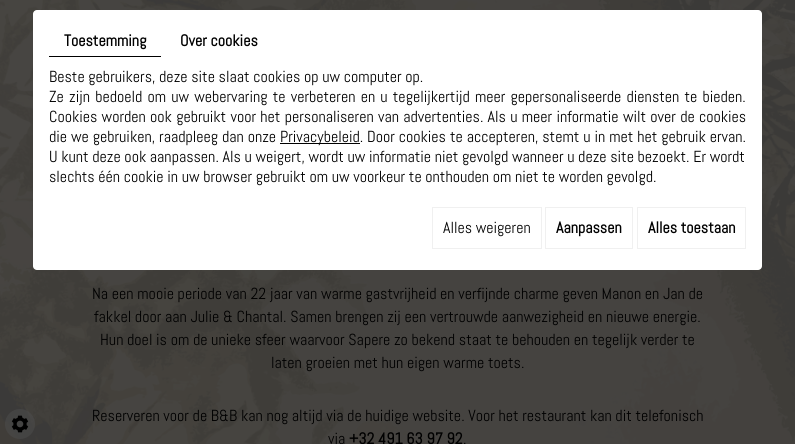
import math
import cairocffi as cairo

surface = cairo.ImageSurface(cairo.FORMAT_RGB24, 795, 444)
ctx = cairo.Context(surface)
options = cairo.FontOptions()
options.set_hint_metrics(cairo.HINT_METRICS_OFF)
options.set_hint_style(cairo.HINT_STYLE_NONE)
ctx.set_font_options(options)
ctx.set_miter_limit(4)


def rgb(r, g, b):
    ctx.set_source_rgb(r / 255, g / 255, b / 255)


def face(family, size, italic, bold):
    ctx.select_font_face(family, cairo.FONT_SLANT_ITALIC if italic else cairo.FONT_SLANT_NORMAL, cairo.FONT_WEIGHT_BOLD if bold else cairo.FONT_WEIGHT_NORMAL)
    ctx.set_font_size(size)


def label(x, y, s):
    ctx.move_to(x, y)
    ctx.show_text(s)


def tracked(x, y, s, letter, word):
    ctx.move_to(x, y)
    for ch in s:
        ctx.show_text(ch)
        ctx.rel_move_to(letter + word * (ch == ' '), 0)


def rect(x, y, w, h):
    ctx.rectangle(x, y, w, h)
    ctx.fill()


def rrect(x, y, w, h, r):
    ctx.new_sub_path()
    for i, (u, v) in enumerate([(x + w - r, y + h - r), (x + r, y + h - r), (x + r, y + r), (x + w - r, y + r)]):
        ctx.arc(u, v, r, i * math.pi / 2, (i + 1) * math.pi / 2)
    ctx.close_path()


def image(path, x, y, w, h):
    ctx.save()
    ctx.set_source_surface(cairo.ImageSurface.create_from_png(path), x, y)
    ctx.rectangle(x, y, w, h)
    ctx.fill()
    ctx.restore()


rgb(70, 69, 66)
ctx.paint()
image('image0.png', 0, 0, 795, 444)
rgb(255, 255, 255)
rrect(33, 10, 729, 260, 4)
ctx.fill()
rgb(0, 0, 0)
rect(49, 56, 112, 1)
face('Abel', 16, 0, 1)
label(64, 46, 'Toestemming')
label(180, 46, 'Over cookies')
face('Abel', 16, 0, 0)
label(49, 82, 'Beste gebruikers, deze site slaat cookies op uw computer op.')
tracked(49, 102, 'Ze zijn bedoeld om uw webervaring te verbeteren en u tegelijkertijd meer gepersonaliseerde diensten te bieden.', 0, 1.5)
tracked(49, 122, 'Cookies worden ook gebruikt voor het personaliseren van advertenties. Als u meer informatie wilt over de cookies', 0, 0.6)
tracked(49, 142, 'die we gebruiken, raadpleeg dan onze', 0, 0.25)
rect(280, 143, 80, 1)
label(280, 142, 'Privacybeleid.')
tracked(367, 142, 'Door cookies te accepteren, stemt u in met het gebruik ervan.', 0, 0.25)
label(49, 162, 'U kunt deze ook aanpassen. Als u weigert, wordt uw informatie niet gevolgd wanneer u deze site bezoekt. Er wordt')
label(49, 182, 'slechts één cookie in uw browser gebruikt om uw voorkeur te onthouden om niet te worden gevolgd.')
ctx.rectangle(432.5, 207.5, 109, 41)
rgb(240, 240, 240)
ctx.set_line_width(1)
ctx.stroke()
rgb(0, 0, 0)
label(443, 233, 'Alles weigeren')
ctx.rectangle(545.5, 207.5, 87, 41)
rgb(240, 240, 240)
ctx.stroke()
face('Abel', 16, 0, 1)
rgb(0, 0, 0)
label(556, 233, 'Aanpassen')
ctx.rectangle(637.5, 207.5, 108, 41)
rgb(240, 240, 240)
ctx.stroke()
rgb(0, 0, 0)
label(648, 233, 'Alles toestaan')
ctx.set_source_rgba(0.302, 0.302, 0.302, 0.54)
ctx.new_path()
ctx.arc(20, 424, 15, 0, 2 * math.pi)
ctx.fill()
image('image1.png', 11, 415, 18, 18)
face('Abel', 16, 0, 0)
rgb(0, 0, 0)
label(92, 299, 'Na een mooie periode van 22 jaar van warme gastvrijheid en verfijnde charme geven Manon en Jan de')
label(94, 322, 'fakkel door aan Julie & Chantal. Samen brengen zij een vertrouwde aanwezigheid en nieuwe energie.')
label(100, 345, 'Hun doel is om de unieke sfeer waarvoor Sapere zo bekend staat te behouden en tegelijk verder te')
label(271, 368, 'laten groeien met hun eigen warme toets.')
label(92, 421, 'Reserveren voor de B&B kan nog altijd via de huidige website. Voor het restaurant kan dit telefonisch')
label(328, 444, 'via')
face('Abel', 16, 0, 1)
label(349, 444, '+32 491 63 97 92')
face('Abel', 16, 0, 0)
label(463, 444, '.')
surface.write_to_png('render.png')
